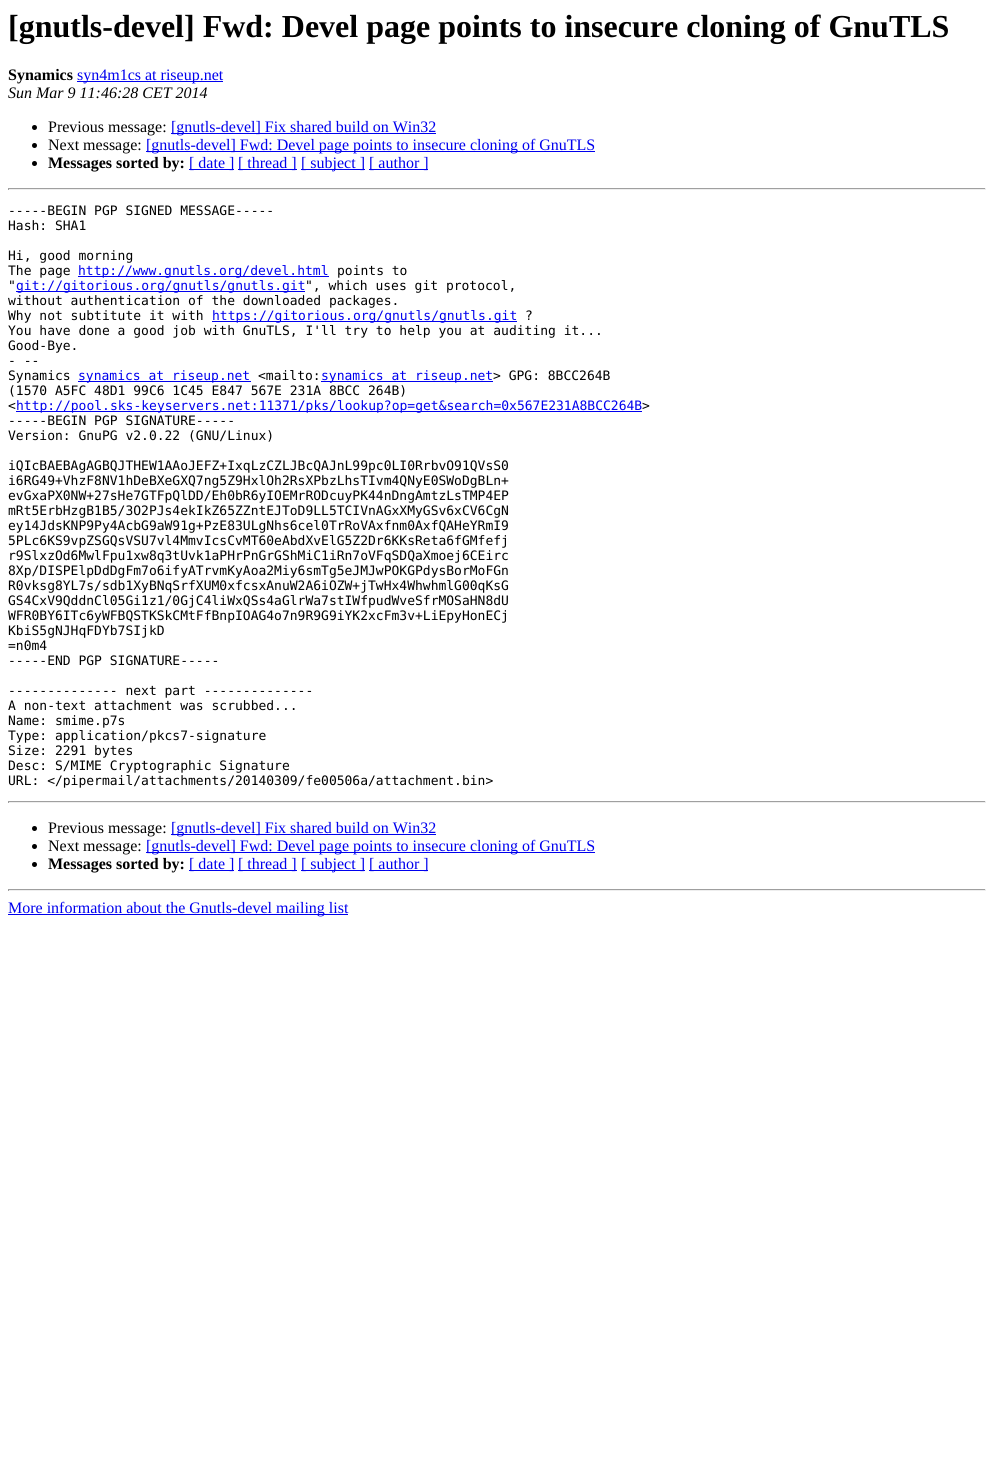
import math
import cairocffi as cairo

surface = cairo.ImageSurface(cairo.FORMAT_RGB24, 994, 1474)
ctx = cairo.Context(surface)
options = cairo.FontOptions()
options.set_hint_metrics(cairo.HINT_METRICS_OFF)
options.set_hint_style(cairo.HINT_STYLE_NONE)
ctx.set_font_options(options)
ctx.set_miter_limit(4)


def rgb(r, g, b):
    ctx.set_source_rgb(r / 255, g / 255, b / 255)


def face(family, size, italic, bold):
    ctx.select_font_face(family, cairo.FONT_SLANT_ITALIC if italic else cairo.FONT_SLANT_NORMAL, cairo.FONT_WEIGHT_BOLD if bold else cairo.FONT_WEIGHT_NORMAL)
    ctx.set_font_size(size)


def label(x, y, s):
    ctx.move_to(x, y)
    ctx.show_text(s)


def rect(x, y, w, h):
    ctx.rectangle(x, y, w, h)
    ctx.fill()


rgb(255, 255, 255)
ctx.paint()
face('Liberation Serif', 32, 0, 1)
rgb(0, 0, 0)
label(8, 37, '[gnutls-devel] Fwd: Devel page points to insecure cloning of GnuTLS')
face('Liberation Serif', 16, 0, 1)
label(8, 80, 'Synamics')
rgb(0, 0, 238)
rect(77, 81, 146, 1)
face('Liberation Serif', 16, 0, 0)
label(77, 80, 'syn4m1cs at riseup.net')
face('Liberation Serif', 16, 1, 0)
rgb(0, 0, 0)
label(8, 98, 'Sun Mar 9 11:46:28 CET 2014')
ctx.new_path()
ctx.arc(34.5, 127.5, 2.5, 0, 2 * math.pi)
ctx.fill()
face('Liberation Serif', 16, 0, 0)
label(48, 132, 'Previous message:')
rgb(0, 0, 238)
rect(171, 133, 265, 1)
label(171, 132, '[gnutls-devel] Fix shared build on Win32')
rgb(0, 0, 0)
ctx.new_path()
ctx.arc(34.5, 145.5, 2.5, 0, 2 * math.pi)
ctx.fill()
label(48, 150, 'Next message:')
rgb(0, 0, 238)
rect(146, 151, 449, 1)
label(146, 150, '[gnutls-devel] Fwd: Devel page points to insecure cloning of GnuTLS')
rgb(0, 0, 0)
ctx.new_path()
ctx.arc(34.5, 163.5, 2.5, 0, 2 * math.pi)
ctx.fill()
face('Liberation Serif', 16, 0, 1)
label(48, 168, 'Messages sorted by:')
rgb(0, 0, 238)
rect(189, 169, 45, 1)
face('Liberation Serif', 16, 0, 0)
label(189, 168, '[ date ]')
rect(238, 169, 59, 1)
label(238, 168, '[ thread ]')
rect(301, 169, 64, 1)
label(301, 168, '[ subject ]')
rect(369, 169, 59, 1)
label(369, 168, '[ author ]')
rgb(159, 159, 159)
rect(8, 188, 978, 1)
rgb(238, 238, 238)
rect(985, 188, 1, 2)
rect(8, 189, 978, 1)
rgb(159, 159, 159)
rect(8, 188, 1, 2)
face('DejaVu Sans Mono', 13, 0, 0)
rgb(0, 0, 0)
label(8, 215, '-----BEGIN PGP SIGNED MESSAGE-----')
label(8, 230, 'Hash: SHA1')
label(8, 260, 'Hi, good morning')
label(8, 275, 'The page')
rgb(0, 0, 238)
rect(78, 276, 251, 1)
label(78, 275, 'http://www.gnutls.org/devel.html')
rgb(0, 0, 0)
label(337, 275, 'points to')
label(8, 290, '"')
rgb(0, 0, 238)
rect(16, 291, 289, 1)
label(16, 290, 'git://gitorious.org/gnutls/gnutls.git')
rgb(0, 0, 0)
label(305, 290, '", which uses git protocol,')
label(8, 305, 'without authentication of the downloaded packages.')
label(8, 320, 'Why not subtitute it with')
rgb(0, 0, 238)
rect(212, 321, 305, 1)
label(212, 320, 'https://gitorious.org/gnutls/gnutls.git')
rgb(0, 0, 0)
label(525, 320, '?')
label(8, 335, 'You have done a good job with GnuTLS, I\'ll try to help you at auditing it...')
label(8, 350, 'Good-Bye.')
label(8, 365, '- --')
label(8, 380, 'Synamics')
rgb(0, 0, 238)
rect(78, 381, 173, 1)
label(78, 380, 'synamics at riseup.net')
rgb(0, 0, 0)
label(258, 380, '<mailto:')
rgb(0, 0, 238)
rect(321, 381, 172, 1)
label(321, 380, 'synamics at riseup.net')
rgb(0, 0, 0)
label(493, 380, '> GPG: 8BCC264B')
label(8, 395, '(1570 A5FC 48D1 99C6 1C45 E847 567E 231A 8BCC 264B)')
label(8, 410, '<')
rgb(0, 0, 238)
rect(16, 411, 626, 1)
label(16, 410, 'http://pool.sks-keyservers.net:11371/pks/lookup?op=get&search=0x567E231A8BCC264B')
rgb(0, 0, 0)
label(642, 410, '>')
label(8, 425, '-----BEGIN PGP SIGNATURE-----')
label(8, 440, 'Version: GnuPG v2.0.22 (GNU/Linux)')
label(8, 470, 'iQIcBAEBAgAGBQJTHEW1AAoJEFZ+IxqLzCZLJBcQAJnL99pc0LI0RrbvO91QVsS0')
label(8, 485, 'i6RG49+VhzF8NV1hDeBXeGXQ7ng5Z9HxlOh2RsXPbzLhsTIvm4QNyE0SWoDgBLn+')
label(8, 500, 'evGxaPX0NW+27sHe7GTFpQlDD/Eh0bR6yIOEMrRODcuyPK44nDngAmtzLsTMP4EP')
label(8, 515, 'mRt5ErbHzgB1B5/3O2PJs4ekIkZ65ZZntEJToD9LL5TCIVnAGxXMyGSv6xCV6CgN')
label(8, 530, 'ey14JdsKNP9Py4AcbG9aW91g+PzE83ULgNhs6cel0TrRoVAxfnm0AxfQAHeYRmI9')
label(8, 545, '5PLc6KS9vpZSGQsVSU7vl4MmvIcsCvMT60eAbdXvElG5Z2Dr6KKsReta6fGMfefj')
label(8, 560, 'r9SlxzOd6MwlFpu1xw8q3tUvk1aPHrPnGrGShMiC1iRn7oVFqSDQaXmoej6CEirc')
label(8, 575, '8Xp/DISPElpDdDgFm7o6ifyATrvmKyAoa2Miy6smTg5eJMJwPOKGPdysBorMoFGn')
label(8, 590, 'R0vksg8YL7s/sdb1XyBNqSrfXUM0xfcsxAnuW2A6iOZW+jTwHx4WhwhmlG00qKsG')
label(8, 605, 'GS4CxV9QddnCl05Gi1z1/0GjC4liWxQSs4aGlrWa7stIWfpudWveSfrMOSaHN8dU')
label(8, 620, 'WFR0BY6ITc6yWFBQSTKSkCMtFfBnpIOAG4o7n9R9G9iYK2xcFm3v+LiEpyHonECj')
label(8, 635, 'KbiS5gNJHqFDYb7SIjkD')
label(8, 650, '=n0m4')
label(8, 665, '-----END PGP SIGNATURE-----')
label(8, 695, '-------------- next part --------------')
label(8, 710, 'A non-text attachment was scrubbed...')
label(8, 725, 'Name: smime.p7s')
label(8, 740, 'Type: application/pkcs7-signature')
label(8, 755, 'Size: 2291 bytes')
label(8, 770, 'Desc: S/MIME Cryptographic Signature')
label(8, 785, 'URL: </pipermail/attachments/20140309/fe00506a/attachment.bin>')
rgb(159, 159, 159)
rect(8, 801, 978, 1)
rgb(238, 238, 238)
rect(985, 801, 1, 2)
rect(8, 802, 978, 1)
rgb(159, 159, 159)
rect(8, 801, 1, 2)
rgb(0, 0, 0)
ctx.new_path()
ctx.arc(34.5, 828.5, 2.5, 0, 2 * math.pi)
ctx.fill()
face('Liberation Serif', 16, 0, 0)
label(48, 833, 'Previous message:')
rgb(0, 0, 238)
rect(171, 834, 265, 1)
label(171, 833, '[gnutls-devel] Fix shared build on Win32')
rgb(0, 0, 0)
ctx.new_path()
ctx.arc(34.5, 846.5, 2.5, 0, 2 * math.pi)
ctx.fill()
label(48, 851, 'Next message:')
rgb(0, 0, 238)
rect(146, 852, 449, 1)
label(146, 851, '[gnutls-devel] Fwd: Devel page points to insecure cloning of GnuTLS')
rgb(0, 0, 0)
ctx.new_path()
ctx.arc(34.5, 864.5, 2.5, 0, 2 * math.pi)
ctx.fill()
face('Liberation Serif', 16, 0, 1)
label(48, 869, 'Messages sorted by:')
rgb(0, 0, 238)
rect(189, 870, 45, 1)
face('Liberation Serif', 16, 0, 0)
label(189, 869, '[ date ]')
rect(238, 870, 59, 1)
label(238, 869, '[ thread ]')
rect(301, 870, 64, 1)
label(301, 869, '[ subject ]')
rect(369, 870, 59, 1)
label(369, 869, '[ author ]')
rgb(159, 159, 159)
rect(8, 889, 978, 1)
rgb(238, 238, 238)
rect(985, 889, 1, 2)
rect(8, 890, 978, 1)
rgb(159, 159, 159)
rect(8, 889, 1, 2)
rgb(0, 0, 238)
rect(8, 914, 340, 1)
label(8, 913, 'More information about the Gnutls-devel mailing list')
surface.write_to_png('render.png')
